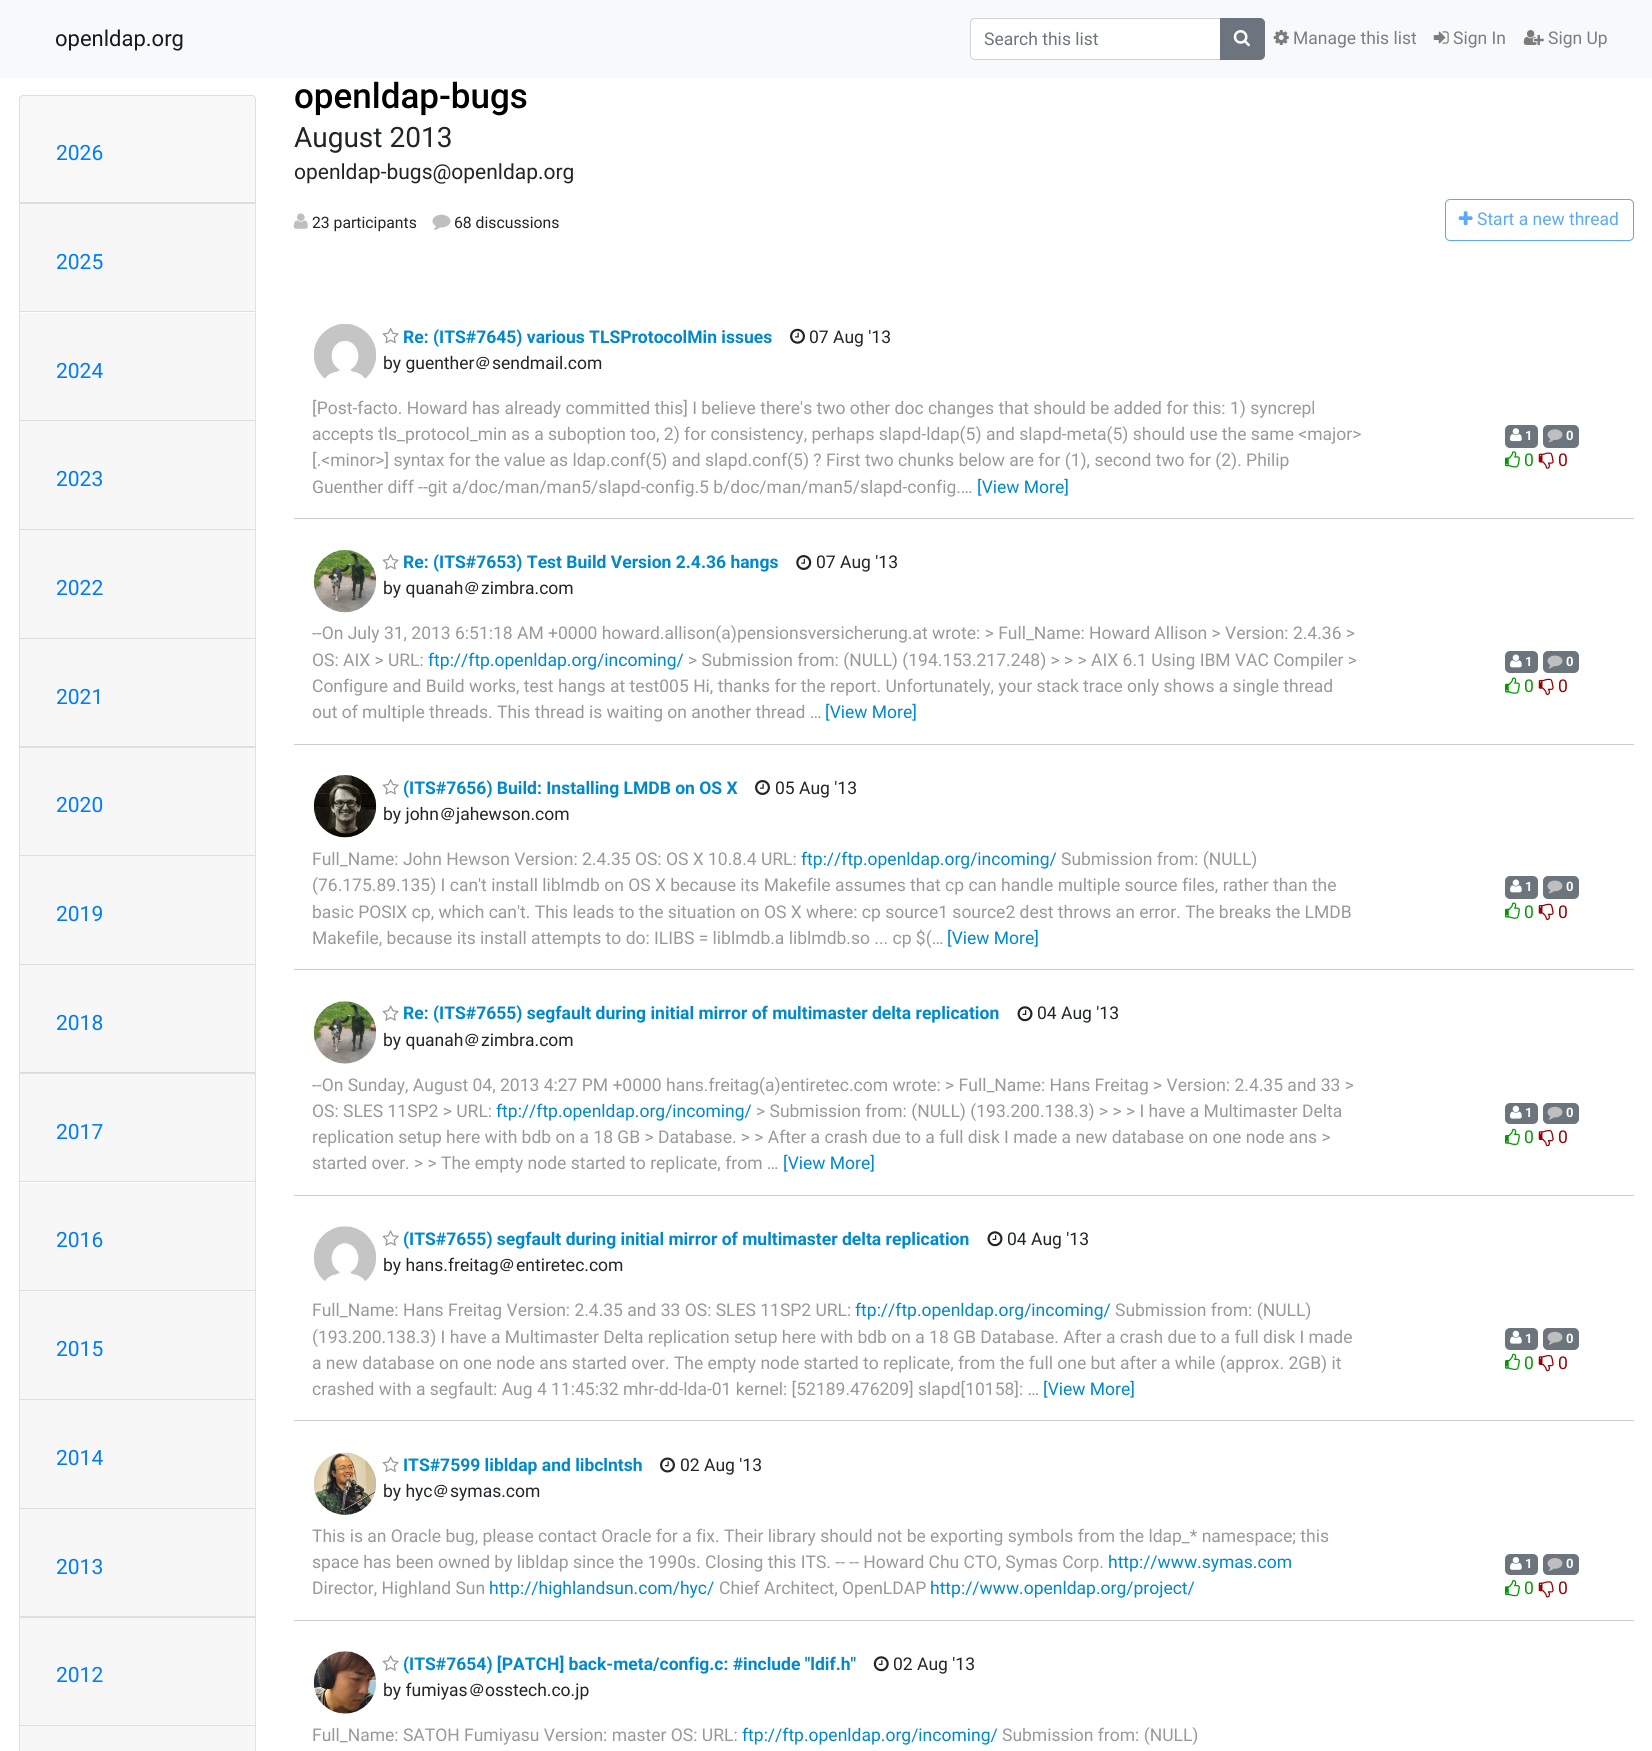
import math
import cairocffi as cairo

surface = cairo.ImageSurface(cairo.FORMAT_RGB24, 1652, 1751)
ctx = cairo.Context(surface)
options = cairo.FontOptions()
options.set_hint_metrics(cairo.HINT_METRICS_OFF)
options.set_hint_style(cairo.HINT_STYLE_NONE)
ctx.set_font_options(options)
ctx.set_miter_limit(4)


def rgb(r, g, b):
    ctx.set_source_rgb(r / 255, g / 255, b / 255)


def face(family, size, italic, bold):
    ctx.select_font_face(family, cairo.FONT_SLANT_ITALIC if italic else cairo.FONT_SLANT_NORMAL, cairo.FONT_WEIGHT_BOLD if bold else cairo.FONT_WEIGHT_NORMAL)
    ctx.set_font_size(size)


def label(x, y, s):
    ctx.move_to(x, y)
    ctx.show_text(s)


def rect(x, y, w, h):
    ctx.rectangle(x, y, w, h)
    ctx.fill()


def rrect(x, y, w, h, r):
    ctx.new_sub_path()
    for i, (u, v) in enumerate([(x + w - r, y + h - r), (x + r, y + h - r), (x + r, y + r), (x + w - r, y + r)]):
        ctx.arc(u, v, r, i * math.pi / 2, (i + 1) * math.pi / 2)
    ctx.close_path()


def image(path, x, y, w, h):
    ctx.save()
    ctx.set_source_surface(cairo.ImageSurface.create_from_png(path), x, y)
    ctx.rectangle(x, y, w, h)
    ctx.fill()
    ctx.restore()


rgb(255, 255, 255)
ctx.paint()
rgb(248, 249, 250)
rect(0, 0, 1652, 78)
face('Roboto', 22, 0, 0)
rgb(25, 25, 25)
label(55, 46, 'openldap.org')
rgb(255, 255, 255)
ctx.new_path()
ctx.move_to(974, 19)
ctx.line_to(1220, 19)
ctx.line_to(1220, 59)
ctx.line_to(974, 59)
ctx.curve_to(972.5, 59, 971, 57.5, 971, 56)
ctx.line_to(971, 22)
ctx.curve_to(971, 20.5, 972.5, 19, 974, 19)
ctx.close_path()
ctx.fill()
ctx.new_path()
ctx.move_to(975, 18.5)
ctx.line_to(1220.5, 18.5)
ctx.line_to(1220.5, 59.5)
ctx.line_to(975, 59.5)
ctx.curve_to(972.5, 59.5, 970.5, 57.5, 970.5, 55)
ctx.line_to(970.5, 23)
ctx.curve_to(970.5, 20.5, 972.5, 18.5, 975, 18.5)
ctx.close_path()
rgb(206, 212, 218)
ctx.set_line_width(1)
ctx.stroke()
face('Roboto', 17.5, 0, 0)
rgb(108, 117, 125)
label(984, 45, 'Search this list')
ctx.new_path()
ctx.move_to(1220.5, 18.5)
ctx.line_to(1260, 18.5)
ctx.curve_to(1262.5, 18.5, 1264.5, 20.5, 1264.5, 23)
ctx.line_to(1264.5, 55)
ctx.curve_to(1264.5, 57.5, 1262.5, 59.5, 1260, 59.5)
ctx.line_to(1220.5, 59.5)
ctx.close_path()
ctx.fill_preserve()
ctx.stroke()
image('image0.png', 1233, 30, 17, 17)
image('image1.png', 1273, 30, 16, 15)
rgb(124, 125, 125)
label(1293, 44, 'Manage this list')
image('image2.png', 1433, 31, 16, 13)
label(1453, 44, 'Sign In')
image('image3.png', 1523, 30, 21, 15)
label(1548, 44, 'Sign Up')
rgb(223, 223, 223)
ctx.set_fill_rule(cairo.FILL_RULE_EVEN_ODD)
ctx.new_path()
ctx.move_to(23, 95)
ctx.line_to(252, 95)
ctx.curve_to(254, 95, 256, 97, 256, 99)
ctx.line_to(256, 202)
ctx.line_to(19, 202)
ctx.line_to(19, 99)
ctx.curve_to(19, 97, 21, 95, 23, 95)
ctx.close_path()
ctx.move_to(23, 96)
ctx.line_to(252, 96)
ctx.curve_to(254, 96, 255, 98, 255, 99)
ctx.line_to(255, 202)
ctx.line_to(20, 202)
ctx.line_to(20, 99)
ctx.curve_to(20, 98, 21, 96, 23, 96)
ctx.close_path()
ctx.fill()
ctx.set_source_rgba(0, 0, 0, 0.03)
rect(20, 96, 235, 107)
face('Roboto', 21, 0, 0)
rgb(0, 123, 255)
label(56, 160, '2026')
ctx.set_source_rgba(0, 0, 0, 0.12)
ctx.set_fill_rule(cairo.FILL_RULE_WINDING)
ctx.new_path()
ctx.move_to(19, 202)
ctx.line_to(256, 202)
ctx.line_to(255, 204)
ctx.line_to(20, 204)
ctx.close_path()
ctx.fill()
ctx.new_path()
ctx.move_to(256, 202)
ctx.line_to(256, 311)
ctx.line_to(255, 311)
ctx.line_to(255, 204)
ctx.close_path()
ctx.fill()
ctx.new_path()
ctx.move_to(19, 311)
ctx.line_to(19, 202)
ctx.line_to(20, 204)
ctx.line_to(20, 311)
ctx.close_path()
ctx.fill()
rgb(247, 247, 247)
rect(20, 204, 235, 107)
rgb(0, 123, 255)
label(56, 269, '2025')
rgb(223, 223, 223)
ctx.new_path()
ctx.move_to(19, 311)
ctx.line_to(256, 311)
ctx.line_to(255, 312)
ctx.line_to(20, 312)
ctx.close_path()
ctx.fill()
ctx.set_source_rgba(0, 0, 0, 0.12)
ctx.new_path()
ctx.move_to(256, 311)
ctx.line_to(256, 420)
ctx.line_to(255, 420)
ctx.line_to(255, 312)
ctx.close_path()
ctx.fill()
ctx.new_path()
ctx.move_to(19, 420)
ctx.line_to(19, 311)
ctx.line_to(20, 312)
ctx.line_to(20, 420)
ctx.close_path()
ctx.fill()
rgb(247, 247, 247)
rect(20, 313, 235, 107)
rgb(0, 123, 255)
label(56, 378, '2024')
rgb(223, 223, 223)
ctx.new_path()
ctx.move_to(19, 420)
ctx.line_to(256, 420)
ctx.line_to(255, 421)
ctx.line_to(20, 421)
ctx.close_path()
ctx.fill()
ctx.set_source_rgba(0, 0, 0, 0.12)
ctx.new_path()
ctx.move_to(256, 420)
ctx.line_to(256, 529)
ctx.line_to(255, 529)
ctx.line_to(255, 421)
ctx.close_path()
ctx.fill()
ctx.new_path()
ctx.move_to(19, 529)
ctx.line_to(19, 420)
ctx.line_to(20, 421)
ctx.line_to(20, 529)
ctx.close_path()
ctx.fill()
rgb(247, 247, 247)
rect(20, 421, 235, 108)
rgb(0, 123, 255)
label(56, 486, '2023')
rgb(223, 223, 223)
ctx.new_path()
ctx.move_to(19, 529)
ctx.line_to(256, 529)
ctx.line_to(255, 530)
ctx.line_to(20, 530)
ctx.close_path()
ctx.fill()
ctx.set_source_rgba(0, 0, 0, 0.12)
ctx.new_path()
ctx.move_to(256, 529)
ctx.line_to(256, 638)
ctx.line_to(255, 638)
ctx.line_to(255, 530)
ctx.close_path()
ctx.fill()
ctx.new_path()
ctx.move_to(19, 638)
ctx.line_to(19, 529)
ctx.line_to(20, 530)
ctx.line_to(20, 638)
ctx.close_path()
ctx.fill()
rgb(247, 247, 247)
rect(20, 530, 235, 108)
rgb(0, 123, 255)
label(56, 595, '2022')
rgb(223, 223, 223)
ctx.new_path()
ctx.move_to(19, 638)
ctx.line_to(256, 638)
ctx.line_to(255, 639)
ctx.line_to(20, 639)
ctx.close_path()
ctx.fill()
ctx.set_source_rgba(0, 0, 0, 0.12)
ctx.new_path()
ctx.move_to(256, 638)
ctx.line_to(256, 746)
ctx.line_to(255, 746)
ctx.line_to(255, 639)
ctx.close_path()
ctx.fill()
ctx.new_path()
ctx.move_to(19, 746)
ctx.line_to(19, 638)
ctx.line_to(20, 639)
ctx.line_to(20, 746)
ctx.close_path()
ctx.fill()
rgb(247, 247, 247)
rect(20, 639, 235, 107)
rgb(0, 123, 255)
label(56, 704, '2021')
rgb(223, 223, 223)
ctx.new_path()
ctx.move_to(19, 746)
ctx.line_to(256, 746)
ctx.line_to(255, 748)
ctx.line_to(20, 748)
ctx.close_path()
ctx.fill()
ctx.set_source_rgba(0, 0, 0, 0.12)
ctx.new_path()
ctx.move_to(256, 746)
ctx.line_to(256, 855)
ctx.line_to(255, 855)
ctx.line_to(255, 748)
ctx.close_path()
ctx.fill()
ctx.new_path()
ctx.move_to(19, 855)
ctx.line_to(19, 746)
ctx.line_to(20, 748)
ctx.line_to(20, 855)
ctx.close_path()
ctx.fill()
rgb(247, 247, 247)
rect(20, 748, 235, 107)
rgb(0, 123, 255)
label(56, 812, '2020')
rgb(223, 223, 223)
ctx.new_path()
ctx.move_to(19, 855)
ctx.line_to(256, 855)
ctx.line_to(255, 856)
ctx.line_to(20, 856)
ctx.close_path()
ctx.fill()
ctx.set_source_rgba(0, 0, 0, 0.12)
ctx.new_path()
ctx.move_to(256, 855)
ctx.line_to(256, 964)
ctx.line_to(255, 964)
ctx.line_to(255, 856)
ctx.close_path()
ctx.fill()
ctx.new_path()
ctx.move_to(19, 964)
ctx.line_to(19, 855)
ctx.line_to(20, 856)
ctx.line_to(20, 964)
ctx.close_path()
ctx.fill()
rgb(247, 247, 247)
rect(20, 856, 235, 108)
rgb(0, 123, 255)
label(56, 921, '2019')
rgb(223, 223, 223)
ctx.new_path()
ctx.move_to(19, 964)
ctx.line_to(256, 964)
ctx.line_to(255, 965)
ctx.line_to(20, 965)
ctx.close_path()
ctx.fill()
ctx.set_source_rgba(0, 0, 0, 0.12)
ctx.new_path()
ctx.move_to(256, 964)
ctx.line_to(256, 1072)
ctx.line_to(255, 1072)
ctx.line_to(255, 965)
ctx.close_path()
ctx.fill()
ctx.new_path()
ctx.move_to(19, 1072)
ctx.line_to(19, 964)
ctx.line_to(20, 965)
ctx.line_to(20, 1072)
ctx.close_path()
ctx.fill()
rgb(247, 247, 247)
rect(20, 965, 235, 108)
rgb(0, 123, 255)
label(56, 1030, '2018')
ctx.set_source_rgba(0, 0, 0, 0.12)
ctx.new_path()
ctx.move_to(19, 1072)
ctx.line_to(256, 1072)
ctx.line_to(255, 1074)
ctx.line_to(20, 1074)
ctx.close_path()
ctx.fill()
ctx.new_path()
ctx.move_to(256, 1072)
ctx.line_to(256, 1181)
ctx.line_to(255, 1181)
ctx.line_to(255, 1074)
ctx.close_path()
ctx.fill()
ctx.new_path()
ctx.move_to(19, 1181)
ctx.line_to(19, 1072)
ctx.line_to(20, 1074)
ctx.line_to(20, 1181)
ctx.close_path()
ctx.fill()
rgb(247, 247, 247)
rect(20, 1074, 235, 107)
rgb(0, 123, 255)
label(56, 1139, '2017')
rgb(223, 223, 223)
ctx.new_path()
ctx.move_to(19, 1181)
ctx.line_to(256, 1181)
ctx.line_to(255, 1182)
ctx.line_to(20, 1182)
ctx.close_path()
ctx.fill()
ctx.set_source_rgba(0, 0, 0, 0.12)
ctx.new_path()
ctx.move_to(256, 1181)
ctx.line_to(256, 1290)
ctx.line_to(255, 1290)
ctx.line_to(255, 1182)
ctx.close_path()
ctx.fill()
ctx.new_path()
ctx.move_to(19, 1290)
ctx.line_to(19, 1181)
ctx.line_to(20, 1182)
ctx.line_to(20, 1290)
ctx.close_path()
ctx.fill()
rgb(247, 247, 247)
rect(20, 1183, 235, 107)
rgb(0, 123, 255)
label(56, 1247, '2016')
rgb(223, 223, 223)
ctx.new_path()
ctx.move_to(19, 1290)
ctx.line_to(256, 1290)
ctx.line_to(255, 1291)
ctx.line_to(20, 1291)
ctx.close_path()
ctx.fill()
ctx.set_source_rgba(0, 0, 0, 0.12)
ctx.new_path()
ctx.move_to(256, 1290)
ctx.line_to(256, 1399)
ctx.line_to(255, 1399)
ctx.line_to(255, 1291)
ctx.close_path()
ctx.fill()
ctx.new_path()
ctx.move_to(19, 1399)
ctx.line_to(19, 1290)
ctx.line_to(20, 1291)
ctx.line_to(20, 1399)
ctx.close_path()
ctx.fill()
rgb(247, 247, 247)
rect(20, 1291, 235, 108)
rgb(0, 123, 255)
label(56, 1356, '2015')
rgb(223, 223, 223)
ctx.new_path()
ctx.move_to(19, 1399)
ctx.line_to(256, 1399)
ctx.line_to(255, 1400)
ctx.line_to(20, 1400)
ctx.close_path()
ctx.fill()
ctx.set_source_rgba(0, 0, 0, 0.12)
ctx.new_path()
ctx.move_to(256, 1399)
ctx.line_to(256, 1508)
ctx.line_to(255, 1508)
ctx.line_to(255, 1400)
ctx.close_path()
ctx.fill()
ctx.new_path()
ctx.move_to(19, 1508)
ctx.line_to(19, 1399)
ctx.line_to(20, 1400)
ctx.line_to(20, 1508)
ctx.close_path()
ctx.fill()
rgb(247, 247, 247)
rect(20, 1400, 235, 108)
rgb(0, 123, 255)
label(56, 1465, '2014')
rgb(223, 223, 223)
ctx.new_path()
ctx.move_to(19, 1508)
ctx.line_to(256, 1508)
ctx.line_to(255, 1509)
ctx.line_to(20, 1509)
ctx.close_path()
ctx.fill()
ctx.set_source_rgba(0, 0, 0, 0.12)
ctx.new_path()
ctx.move_to(256, 1508)
ctx.line_to(256, 1616)
ctx.line_to(255, 1616)
ctx.line_to(255, 1509)
ctx.close_path()
ctx.fill()
ctx.new_path()
ctx.move_to(19, 1616)
ctx.line_to(19, 1508)
ctx.line_to(20, 1509)
ctx.line_to(20, 1616)
ctx.close_path()
ctx.fill()
rgb(247, 247, 247)
rect(20, 1509, 235, 107)
rgb(0, 123, 255)
label(56, 1574, '2013')
rgb(223, 223, 223)
ctx.new_path()
ctx.move_to(19, 1616)
ctx.line_to(256, 1616)
ctx.line_to(255, 1618)
ctx.line_to(20, 1618)
ctx.close_path()
ctx.fill()
ctx.set_source_rgba(0, 0, 0, 0.12)
ctx.new_path()
ctx.move_to(256, 1616)
ctx.line_to(256, 1725)
ctx.line_to(255, 1725)
ctx.line_to(255, 1618)
ctx.close_path()
ctx.fill()
ctx.new_path()
ctx.move_to(19, 1725)
ctx.line_to(19, 1616)
ctx.line_to(20, 1618)
ctx.line_to(20, 1725)
ctx.close_path()
ctx.fill()
rgb(247, 247, 247)
rect(20, 1618, 235, 107)
rgb(0, 123, 255)
label(56, 1682, '2012')
rgb(223, 223, 223)
ctx.new_path()
ctx.move_to(19, 1725)
ctx.line_to(256, 1725)
ctx.line_to(255, 1726)
ctx.line_to(20, 1726)
ctx.close_path()
ctx.fill()
ctx.set_source_rgba(0, 0, 0, 0.12)
ctx.new_path()
ctx.move_to(256, 1725)
ctx.line_to(256, 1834)
ctx.line_to(255, 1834)
ctx.line_to(255, 1726)
ctx.close_path()
ctx.fill()
ctx.new_path()
ctx.move_to(19, 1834)
ctx.line_to(19, 1725)
ctx.line_to(20, 1726)
ctx.line_to(20, 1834)
ctx.close_path()
ctx.fill()
rgb(247, 247, 247)
rect(20, 1726, 235, 25)
face('Roboto Medium', 35, 0, 0)
rgb(0, 0, 0)
label(294, 108, 'openldap-bugs')
face('Roboto', 28, 0, 0)
rgb(33, 37, 41)
label(294, 147, 'August 2013')
face('Roboto', 21, 0, 0)
label(294, 179, 'openldap-bugs@openldap.org')
image('image4.png', 293, 213, 15, 16)
face('Roboto', 15.75, 0, 0)
label(312, 228, '23 participants')
image('image5.png', 432, 214, 19, 16)
label(454, 228, '68 discussions')
rrect(1445.5, 199.5, 188, 41, 4.5)
rgb(89, 169, 255)
ctx.stroke()
image('image6.png', 1458, 211, 15, 14)
face('Roboto', 17.5, 0, 0)
label(1477, 225, 'Start a new thread')
rgb(204, 204, 204)
rect(294, 518, 1340, 1)
image('image7.png', 314, 324, 62, 55)
image('image8.png', 382, 327, 17, 17)
face('Roboto', 17.5, 0, 1)
rgb(0, 136, 204)
label(403, 343, 'Re: (ITS#7645) various TLSProtocolMin issues')
face('Roboto', 17.5, 0, 0)
rgb(33, 37, 41)
label(383, 369, 'by guenther')
face('WenQuanYi Zen Hei Medium', 17.5, 0, 0)
label(474, 369, '＠')
face('Roboto', 17.5, 0, 0)
label(492, 369, 'sendmail.com')
image('image9.png', 790, 328, 15, 16)
label(809, 343, '07 Aug \'13')
rgb(153, 153, 153)
label(312, 414, '[Post-facto. Howard has already committed this] I believe there\'s two other doc changes that should be added for this: 1) syncrepl')
label(312, 440, 'accepts tls_protocol_min as a suboption too, 2) for consistency, perhaps slapd-ldap(5) and slapd-meta(5) should use the same <major>')
label(312, 466, '[.<minor>] syntax for the value as ldap.conf(5) and slapd.conf(5) ? First two chunks below are for (1), second two for (2). Philip')
label(312, 493, 'Guenther diff --git a/doc/man/man5/slapd-config.5 b/doc/man/man5/slapd-config.…')
rgb(0, 136, 204)
label(977, 493, '[View More]')
rgb(108, 117, 125)
rrect(1505, 425, 33, 23, 5)
ctx.fill()
image('image10.png', 1510, 428, 12, 14)
face('Roboto', 13, 0, 1)
rgb(255, 255, 255)
label(1525, 440, '1')
rgb(108, 117, 125)
rrect(1543, 425, 36, 23, 5)
ctx.fill()
image('image11.png', 1547, 429, 16, 13)
rgb(255, 255, 255)
label(1566, 440, '0')
image('image12.png', 1505, 451, 15, 17)
face('Roboto', 17.5, 0, 0)
rgb(0, 153, 0)
label(1524, 466, '0')
image('image13.png', 1538, 452, 16, 17)
rgb(153, 0, 0)
label(1558, 466, '0')
rgb(204, 204, 204)
rect(294, 744, 1340, 1)
image('image14.png', 313, 550, 64, 63)
image('image15.png', 382, 554, 17, 16)
face('Roboto', 17.5, 0, 1)
rgb(0, 136, 204)
label(403, 568, 'Re: (ITS#7653) Test Build Version 2.4.36 hangs')
face('Roboto', 17.5, 0, 0)
rgb(33, 37, 41)
label(383, 594, 'by quanah')
face('WenQuanYi Zen Hei Medium', 17.5, 0, 0)
label(463, 594, '＠')
face('Roboto', 17.5, 0, 0)
label(481, 594, 'zimbra.com')
image('image16.png', 796, 555, 16, 15)
label(816, 568, '07 Aug \'13')
rgb(153, 153, 153)
label(312, 639, '--On July 31, 2013 6:51:18 AM +0000 howard.allison(a)pensionsversicherung.at wrote: > Full_Name: Howard Allison > Version: 2.4.36 >')
label(312, 666, 'OS: AIX > URL:')
rgb(0, 136, 204)
label(428, 666, 'ftp://ftp.openldap.org/incoming/')
rgb(153, 153, 153)
label(688, 666, '> Submission from: (NULL) (194.153.217.248) > > > AIX 6.1 Using IBM VAC Compiler >')
label(312, 692, 'Configure and Build works, test hangs at test005 Hi, thanks for the report. Unfortunately, your stack trace only shows a single thread')
label(312, 718, 'out of multiple threads. This thread is waiting on another thread …')
rgb(0, 136, 204)
label(825, 718, '[View More]')
rgb(108, 117, 125)
rrect(1505, 651, 33, 22, 5)
ctx.fill()
image('image17.png', 1510, 654, 12, 14)
face('Roboto', 13, 0, 1)
rgb(255, 255, 255)
label(1525, 666, '1')
rgb(108, 117, 125)
rrect(1543, 651, 36, 22, 5)
ctx.fill()
image('image18.png', 1547, 655, 16, 14)
rgb(255, 255, 255)
label(1566, 666, '0')
image('image19.png', 1505, 677, 15, 17)
face('Roboto', 17.5, 0, 0)
rgb(0, 153, 0)
label(1524, 692, '0')
image('image20.png', 1538, 678, 16, 17)
rgb(153, 0, 0)
label(1558, 692, '0')
rgb(204, 204, 204)
rect(294, 969, 1340, 1)
image('image21.png', 313, 775, 64, 63)
image('image15.png', 382, 779, 17, 16)
face('Roboto', 17.5, 0, 1)
rgb(0, 136, 204)
label(403, 794, '(ITS#7656) Build: Installing LMDB on OS X')
face('Roboto', 17.5, 0, 0)
rgb(33, 37, 41)
label(383, 820, 'by john')
face('WenQuanYi Zen Hei Medium', 17.5, 0, 0)
label(439, 820, '＠')
face('Roboto', 17.5, 0, 0)
label(456, 820, 'jahewson.com')
image('image22.png', 755, 780, 15, 15)
label(775, 794, '05 Aug \'13')
rgb(153, 153, 153)
label(312, 865, 'Full_Name: John Hewson Version: 2.4.35 OS: OS X 10.8.4 URL:')
rgb(0, 136, 204)
label(801, 865, 'ftp://ftp.openldap.org/incoming/')
rgb(153, 153, 153)
label(1061, 865, 'Submission from: (NULL)')
label(312, 891, '(76.175.89.135) I can\'t install liblmdb on OS X because its Makefile assumes that cp can handle multiple source files, rather than the')
label(312, 918, 'basic POSIX cp, which can\'t. This leads to the situation on OS X where: cp source1 source2 dest throws an error. The breaks the LMDB')
label(312, 944, 'Makefile, because its install attempts to do: ILIBS = liblmdb.a liblmdb.so ... cp $(…')
rgb(0, 136, 204)
label(947, 944, '[View More]')
rgb(108, 117, 125)
rrect(1505, 876, 33, 23, 5)
ctx.fill()
image('image17.png', 1510, 879, 12, 14)
face('Roboto', 13, 0, 1)
rgb(255, 255, 255)
label(1525, 891, '1')
rgb(108, 117, 125)
rrect(1543, 876, 36, 23, 5)
ctx.fill()
image('image18.png', 1547, 880, 16, 14)
rgb(255, 255, 255)
label(1566, 891, '0')
image('image19.png', 1505, 902, 15, 17)
face('Roboto', 17.5, 0, 0)
rgb(0, 153, 0)
label(1524, 918, '0')
image('image20.png', 1538, 903, 16, 17)
rgb(153, 0, 0)
label(1558, 918, '0')
rgb(204, 204, 204)
rect(294, 1195, 1340, 1)
image('image23.png', 313, 1001, 64, 63)
image('image24.png', 382, 1005, 17, 16)
face('Roboto', 17.5, 0, 1)
rgb(0, 136, 204)
label(403, 1019, 'Re: (ITS#7655) segfault during initial mirror of multimaster delta replication')
face('Roboto', 17.5, 0, 0)
rgb(33, 37, 41)
label(383, 1046, 'by quanah')
face('WenQuanYi Zen Hei Medium', 17.5, 0, 0)
label(463, 1046, '＠')
face('Roboto', 17.5, 0, 0)
label(481, 1046, 'zimbra.com')
image('image25.png', 1017, 1006, 16, 16)
label(1037, 1019, '04 Aug \'13')
rgb(153, 153, 153)
label(312, 1091, '--On Sunday, August 04, 2013 4:27 PM +0000 hans.freitag(a)entiretec.com wrote: > Full_Name: Hans Freitag > Version: 2.4.35 and 33 >')
label(312, 1117, 'OS: SLES 11SP2 > URL:')
rgb(0, 136, 204)
label(496, 1117, 'ftp://ftp.openldap.org/incoming/')
rgb(153, 153, 153)
label(756, 1117, '> Submission from: (NULL) (193.200.138.3) > > > I have a Multimaster Delta')
label(312, 1143, 'replication setup here with bdb on a 18 GB > Database. > > After a crash due to a full disk I made a new database on one node ans >')
label(312, 1169, 'started over. > > The empty node started to replicate, from …')
rgb(0, 136, 204)
label(783, 1169, '[View More]')
rgb(108, 117, 125)
rrect(1505, 1103, 33, 21, 5)
ctx.fill()
image('image26.png', 1510, 1105, 12, 14)
face('Roboto', 13, 0, 1)
rgb(255, 255, 255)
label(1525, 1117, '1')
rgb(108, 117, 125)
rrect(1543, 1103, 36, 21, 5)
ctx.fill()
image('image27.png', 1547, 1106, 16, 14)
rgb(255, 255, 255)
label(1566, 1117, '0')
image('image28.png', 1505, 1128, 15, 17)
face('Roboto', 17.5, 0, 0)
rgb(0, 153, 0)
label(1524, 1143, '0')
image('image29.png', 1538, 1130, 16, 17)
rgb(153, 0, 0)
label(1558, 1143, '0')
rgb(204, 204, 204)
rect(294, 1420, 1340, 1)
image('image30.png', 314, 1226, 62, 55)
image('image24.png', 382, 1230, 17, 16)
face('Roboto', 17.5, 0, 1)
rgb(0, 136, 204)
label(403, 1245, '(ITS#7655) segfault during initial mirror of multimaster delta replication')
face('Roboto', 17.5, 0, 0)
rgb(33, 37, 41)
label(383, 1271, 'by hans.freitag')
face('WenQuanYi Zen Hei Medium', 17.5, 0, 0)
label(498, 1271, '＠')
face('Roboto', 17.5, 0, 0)
label(516, 1271, 'entiretec.com')
image('image25.png', 987, 1231, 16, 16)
label(1007, 1245, '04 Aug \'13')
rgb(153, 153, 153)
label(312, 1316, 'Full_Name: Hans Freitag Version: 2.4.35 and 33 OS: SLES 11SP2 URL:')
rgb(0, 136, 204)
label(855, 1316, 'ftp://ftp.openldap.org/incoming/')
rgb(153, 153, 153)
label(1115, 1316, 'Submission from: (NULL)')
label(312, 1343, '(193.200.138.3) I have a Multimaster Delta replication setup here with bdb on a 18 GB Database. After a crash due to a full disk I made')
label(312, 1369, 'a new database on one node ans started over. The empty node started to replicate, from the full one but after a while (approx. 2GB) it')
label(312, 1395, 'crashed with a segfault: Aug 4 11:45:32 mhr-dd-lda-01 kernel: [52189.476209] slapd[10158]: …')
rgb(0, 136, 204)
label(1043, 1395, '[View More]')
rgb(108, 117, 125)
rrect(1505, 1328, 33, 22, 5)
ctx.fill()
image('image26.png', 1510, 1330, 12, 14)
face('Roboto', 13, 0, 1)
rgb(255, 255, 255)
label(1525, 1343, '1')
rgb(108, 117, 125)
rrect(1543, 1328, 36, 22, 5)
ctx.fill()
image('image27.png', 1547, 1331, 16, 14)
rgb(255, 255, 255)
label(1566, 1343, '0')
image('image28.png', 1505, 1353, 15, 17)
face('Roboto', 17.5, 0, 0)
rgb(0, 153, 0)
label(1524, 1369, '0')
image('image29.png', 1538, 1355, 16, 17)
rgb(153, 0, 0)
label(1558, 1369, '0')
rgb(204, 204, 204)
rect(294, 1620, 1340, 1)
image('image31.png', 313, 1452, 64, 63)
image('image32.png', 382, 1456, 17, 16)
face('Roboto', 17.5, 0, 1)
rgb(0, 136, 204)
label(403, 1471, 'ITS#7599 libldap and libclntsh')
face('Roboto', 17.5, 0, 0)
rgb(33, 37, 41)
label(383, 1497, 'by hyc')
face('WenQuanYi Zen Hei Medium', 17.5, 0, 0)
label(432, 1497, '＠')
face('Roboto', 17.5, 0, 0)
label(450, 1497, 'symas.com')
image('image33.png', 660, 1457, 15, 16)
label(680, 1471, '02 Aug \'13')
rgb(153, 153, 153)
label(312, 1542, 'This is an Oracle bug, please contact Oracle for a fix. Their library should not be exporting symbols from the ldap_* namespace; this')
label(312, 1568, 'space has been owned by libldap since the 1990s. Closing this ITS. -- -- Howard Chu CTO, Symas Corp.')
rgb(0, 136, 204)
label(1108, 1568, 'http://www.symas.com')
rgb(153, 153, 153)
label(312, 1594, 'Director, Highland Sun')
rgb(0, 136, 204)
label(489, 1594, 'http://highlandsun.com/hyc/')
rgb(153, 153, 153)
label(719, 1594, 'Chief Architect, OpenLDAP')
rgb(0, 136, 204)
label(930, 1594, 'http://www.openldap.org/project/')
rgb(108, 117, 125)
rrect(1505, 1554, 33, 21, 5)
ctx.fill()
image('image34.png', 1510, 1557, 12, 13)
face('Roboto', 13, 0, 1)
rgb(255, 255, 255)
label(1525, 1568, '1')
rgb(108, 117, 125)
rrect(1543, 1554, 36, 21, 5)
ctx.fill()
image('image35.png', 1547, 1558, 16, 13)
rgb(255, 255, 255)
label(1566, 1568, '0')
image('image36.png', 1505, 1580, 15, 17)
face('Roboto', 17.5, 0, 0)
rgb(0, 153, 0)
label(1524, 1594, '0')
image('image37.png', 1538, 1581, 16, 17)
rgb(153, 0, 0)
label(1558, 1594, '0')
image('image38.png', 313, 1651, 64, 63)
image('image24.png', 382, 1655, 17, 16)
face('Roboto', 17.5, 0, 1)
rgb(0, 136, 204)
label(403, 1670, '(ITS#7654) [PATCH] back-meta/config.c: #include "ldif.h"')
face('Roboto', 17.5, 0, 0)
rgb(33, 37, 41)
label(383, 1696, 'by fumiyas')
face('WenQuanYi Zen Hei Medium', 17.5, 0, 0)
label(468, 1696, '＠')
face('Roboto', 17.5, 0, 0)
label(485, 1696, 'osstech.co.jp')
image('image39.png', 873, 1656, 16, 16)
label(893, 1670, '02 Aug \'13')
rgb(153, 153, 153)
label(312, 1741, 'Full_Name: SATOH Fumiyasu Version: master OS: URL:')
rgb(0, 136, 204)
label(742, 1741, 'ftp://ftp.openldap.org/incoming/')
rgb(153, 153, 153)
label(1002, 1741, 'Submission from: (NULL)')
surface.write_to_png('render.png')
